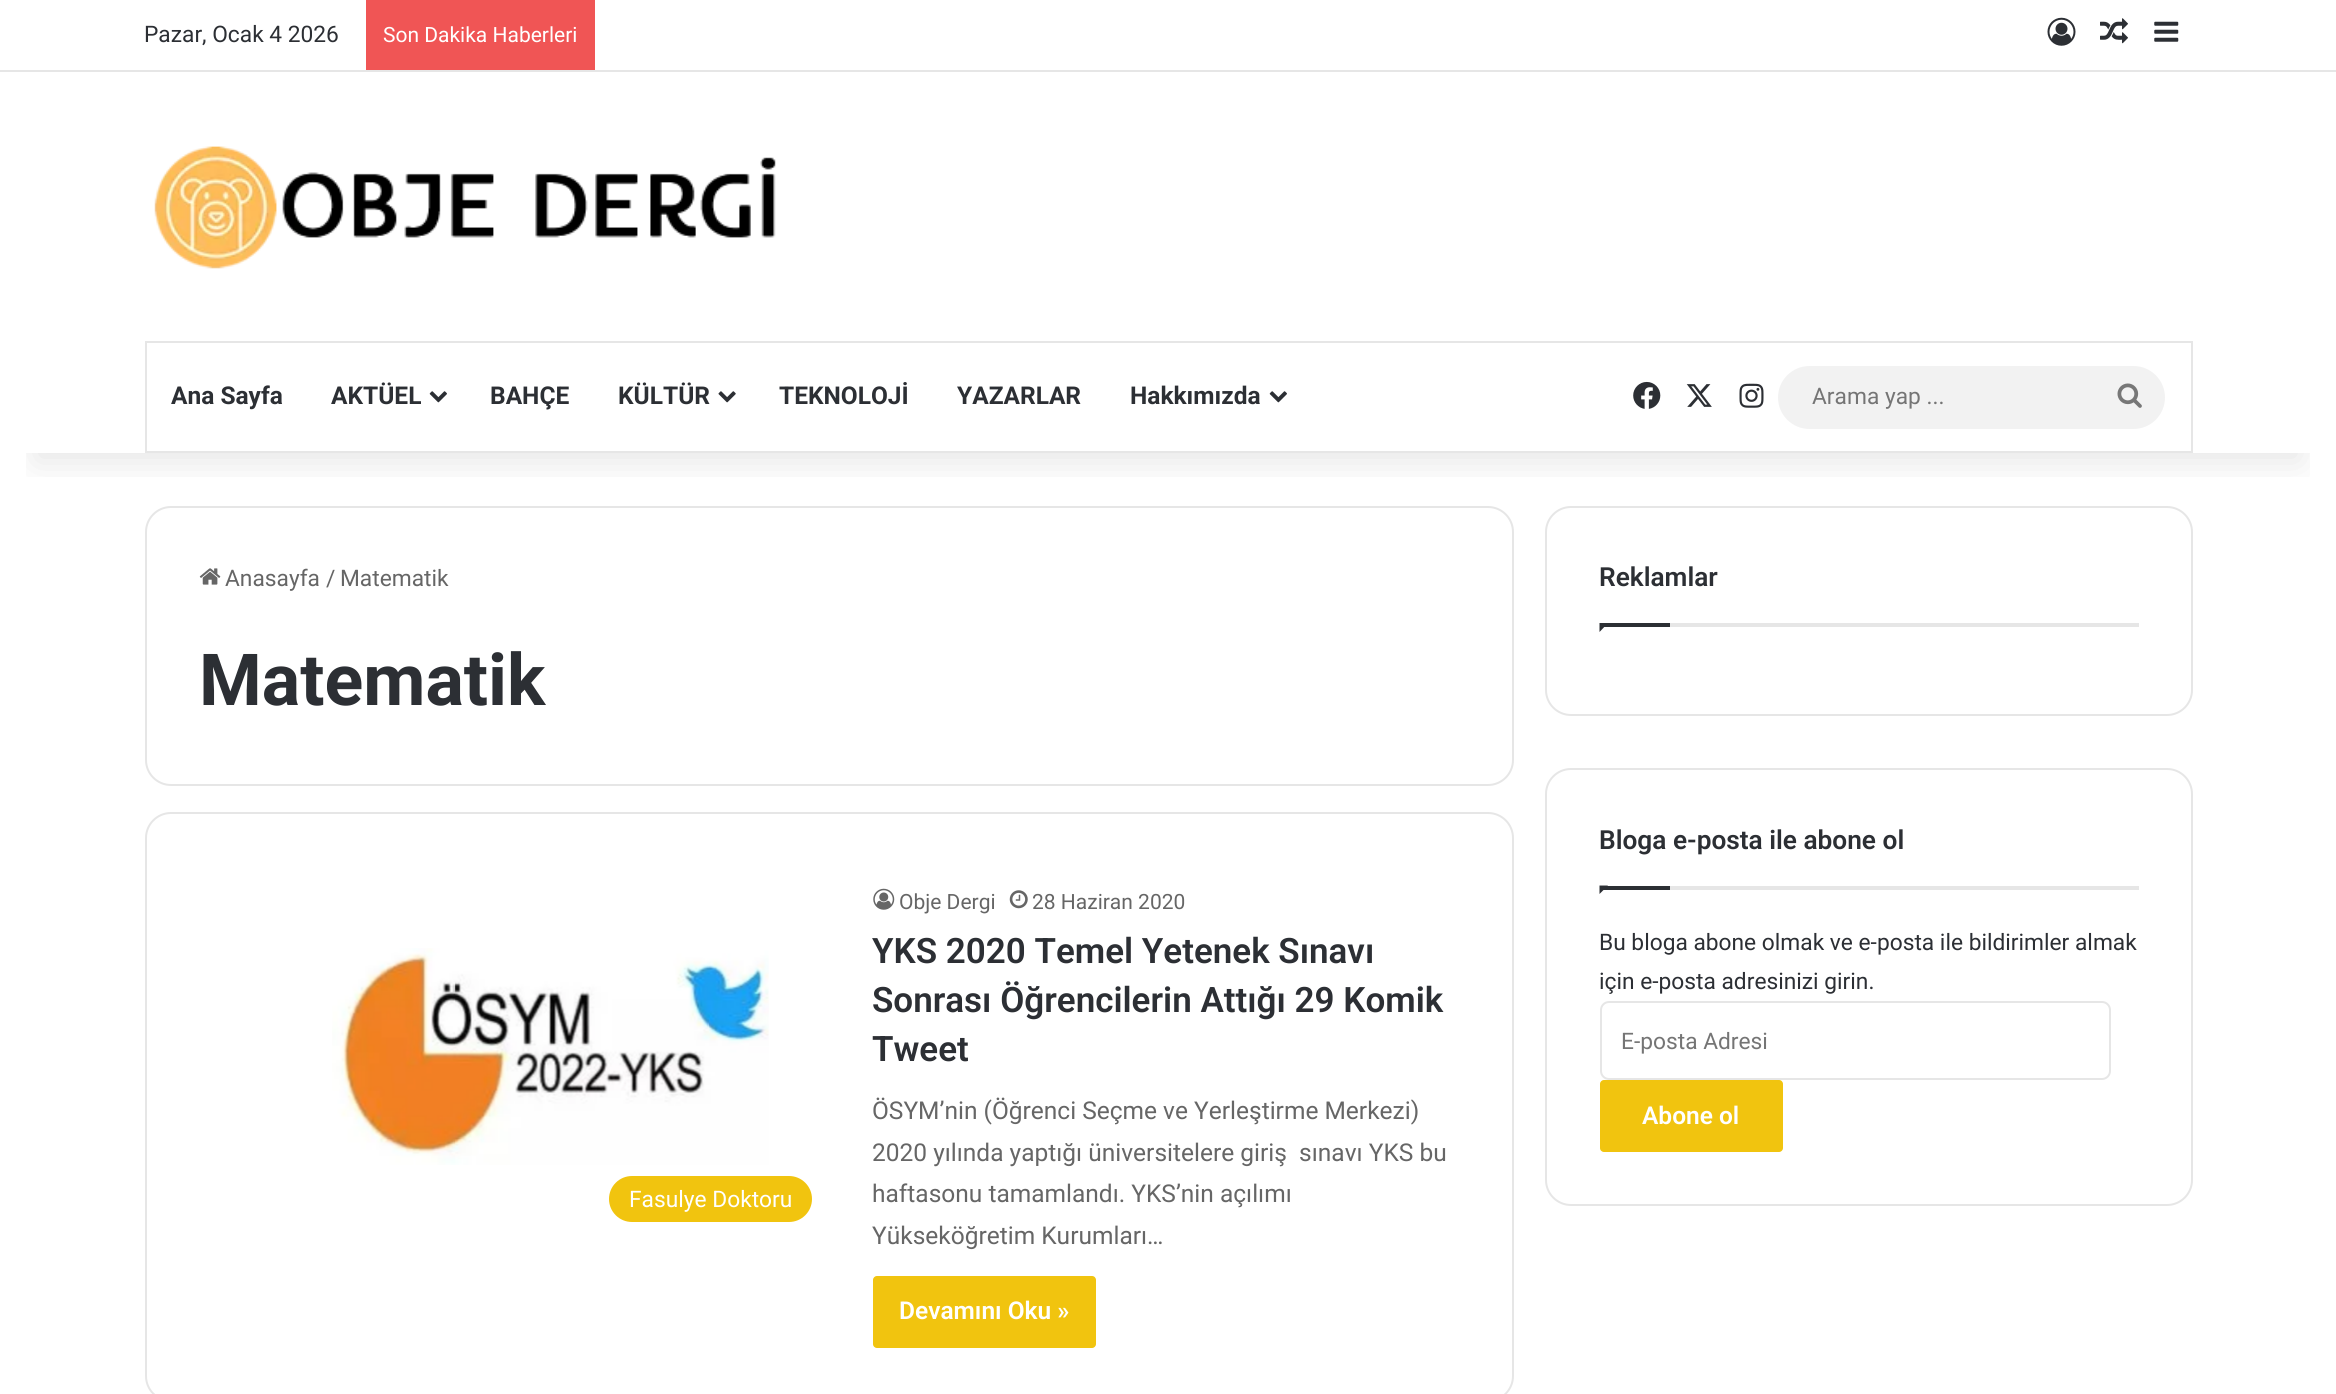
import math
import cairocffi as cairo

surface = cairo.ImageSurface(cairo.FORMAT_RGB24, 2336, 1394)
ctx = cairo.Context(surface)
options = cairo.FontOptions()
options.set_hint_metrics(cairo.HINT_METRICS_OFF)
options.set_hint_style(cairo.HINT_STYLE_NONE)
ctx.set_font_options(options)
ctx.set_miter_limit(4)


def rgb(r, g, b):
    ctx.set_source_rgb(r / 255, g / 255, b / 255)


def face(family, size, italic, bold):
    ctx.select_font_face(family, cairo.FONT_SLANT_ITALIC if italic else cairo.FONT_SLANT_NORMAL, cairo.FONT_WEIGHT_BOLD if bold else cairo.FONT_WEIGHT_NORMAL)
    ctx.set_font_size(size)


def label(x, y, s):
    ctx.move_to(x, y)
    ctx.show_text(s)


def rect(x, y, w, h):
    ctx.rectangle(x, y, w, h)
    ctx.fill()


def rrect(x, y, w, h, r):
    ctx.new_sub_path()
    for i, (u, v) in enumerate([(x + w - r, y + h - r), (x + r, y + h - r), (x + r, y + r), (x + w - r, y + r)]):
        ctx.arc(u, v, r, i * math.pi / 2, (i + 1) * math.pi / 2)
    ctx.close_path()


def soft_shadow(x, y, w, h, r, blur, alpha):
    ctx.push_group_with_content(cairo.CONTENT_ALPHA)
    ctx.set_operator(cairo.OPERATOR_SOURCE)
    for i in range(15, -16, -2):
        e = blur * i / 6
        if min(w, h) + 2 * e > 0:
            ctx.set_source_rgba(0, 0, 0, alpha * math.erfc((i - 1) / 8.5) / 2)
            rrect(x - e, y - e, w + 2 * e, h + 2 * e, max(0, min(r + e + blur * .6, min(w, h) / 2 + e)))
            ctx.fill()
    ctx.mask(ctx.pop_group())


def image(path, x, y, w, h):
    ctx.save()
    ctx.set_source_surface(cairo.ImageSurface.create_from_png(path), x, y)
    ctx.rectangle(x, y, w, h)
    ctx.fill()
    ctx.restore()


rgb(255, 255, 255)
ctx.paint()
rrect(146, 507, 1367, 278, 25)
rgb(230, 230, 230)
ctx.stroke()
rrect(1546, 507, 646, 208, 25)
ctx.stroke()
ctx.save()
ctx.rectangle(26, 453, 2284, 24)
ctx.clip()
rgb(0, 0, 0)
soft_shadow(35, 79, 2266, 383, 0, 17.5, 0.1)
ctx.restore()
rect(0, 70, 2336, 2)
face('Roboto', 22.75, 0, 0)
rgb(44, 47, 52)
label(144, 42, 'Pazar, Ocak 4 2026')
rgb(240, 85, 85)
rect(366, 0, 229, 70)
face('Roboto', 21, 0, 0)
rgb(255, 255, 255)
label(383, 42, 'Son Dakika Haberleri')
image('image0.png', 2047, 17, 29, 29)
image('image1.png', 2100, 18, 28, 26)
image('image2.png', 2154, 21, 25, 21)
image('image3.png', 154, 146, 622, 123)
ctx.rectangle(146, 342, 2046, 110)
rgb(230, 230, 230)
ctx.stroke()
face('Roboto', 24.5, 0, 1)
rgb(44, 47, 52)
label(171, 404, 'Ana Sayfa')
label(331, 404, 'AKTÜEL')
image('image4.png', 429, 391, 18, 12)
label(490, 404, 'BAHÇE')
label(618, 404, 'KÜLTÜR')
image('image5.png', 718, 391, 18, 12)
label(779, 404, 'TEKNOLOJİ')
label(957, 404, 'YAZARLAR')
label(1130, 404, 'Hakkımızda')
image('image4.png', 1269, 391, 18, 12)
image('image6.png', 1633, 381, 28, 28)
image('image7.png', 1686, 384, 26, 23)
image('image8.png', 1739, 383, 25, 25)
rgb(242, 242, 242)
rrect(1778, 366, 387, 63, 31.5)
ctx.fill()
face('Roboto', 22.75, 0, 0)
rgb(117, 117, 117)
label(1812, 404, 'Arama yap ...')
image('image9.png', 2117, 383, 25, 25)
image('image10.png', 199, 568, 22, 17)
rgb(102, 102, 102)
label(225, 586, 'Anasayfa')
label(326, 586, '/')
label(340, 586, 'Matematik')
face('Roboto', 71.75, 0, 1)
rgb(44, 47, 52)
label(199, 705, 'Matematik')
rrect(146, 813, 1367, 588, 25)
rgb(230, 230, 230)
ctx.stroke()
image('image11.png', 332, 948, 437, 217)
rgb(241, 196, 15)
rrect(609, 1176, 203, 46, 23)
ctx.fill()
face('Roboto', 22.75, 0, 0)
rgb(255, 255, 255)
label(629, 1207, 'Fasulye Doktoru')
image('image12.png', 873, 888, 22, 22)
face('Roboto', 21, 0, 0)
rgb(102, 102, 102)
label(899, 909, 'Obje Dergi')
image('image13.png', 1009, 890, 19, 19)
label(1032, 909, '28 Haziran 2020')
face('Roboto SemiBold', 35, 0, 0)
rgb(44, 47, 52)
label(872, 963, 'YKS 2020 Temel Yetenek Sınavı')
label(872, 1012, 'Sonrası Öğrencilerin Attığı 29 Komik')
label(872, 1061, 'Tweet')
face('Roboto', 24.5, 0, 0)
rgb(102, 102, 102)
label(872, 1119, 'ÖSYM’nin (Öğrenci Seçme ve Yerleştirme Merkezi)')
label(872, 1161, '2020 yılında yaptığı üniversitelere giriş  sınavı YKS bu')
label(872, 1202, 'haftasonu tamamlandı. YKS’nin açılımı')
label(872, 1244, 'Yükseköğretim Kurumları…')
rgb(241, 196, 15)
rrect(873, 1276, 223, 72, 4)
ctx.fill()
face('Roboto SemiBold', 24.5, 0, 0)
rgb(255, 255, 255)
label(899, 1319, 'Devamını Oku »')
rgb(230, 230, 230)
rect(1670, 623, 469, 4)
face('Roboto SemiBold', 26.25, 0, 0)
rgb(44, 47, 52)
label(1599, 586, 'Reklamlar')
ctx.new_path()
ctx.move_to(1599.5, 623)
ctx.line_to(1608, 623)
ctx.line_to(1599.5, 632)
ctx.close_path()
ctx.fill()
rect(1600, 623, 70, 4)
rrect(1546, 769, 646, 436, 25)
rgb(230, 230, 230)
ctx.stroke()
rect(1670, 886, 469, 4)
rgb(44, 47, 52)
label(1599, 849, 'Bloga e-posta ile abone ol')
ctx.new_path()
ctx.move_to(1599.5, 885.5)
ctx.line_to(1608, 885.5)
ctx.line_to(1599.5, 894)
ctx.close_path()
ctx.fill()
rect(1600, 886, 70, 4)
face('Roboto', 22.75, 0, 0)
label(1599, 950, 'Bu bloga abone olmak ve e-posta ile bildirimler almak')
label(1599, 989, 'için e-posta adresinizi girin.')
rrect(1601, 1002, 509, 77, 8)
rgb(230, 230, 230)
ctx.stroke()
rgb(117, 117, 117)
label(1621, 1049, 'E-posta Adresi')
rgb(241, 196, 15)
rrect(1600, 1080, 183, 72, 4)
ctx.fill()
face('Roboto SemiBold', 24.5, 0, 0)
rgb(255, 255, 255)
label(1642, 1124, 'Abone ol')
surface.write_to_png('render.png')
